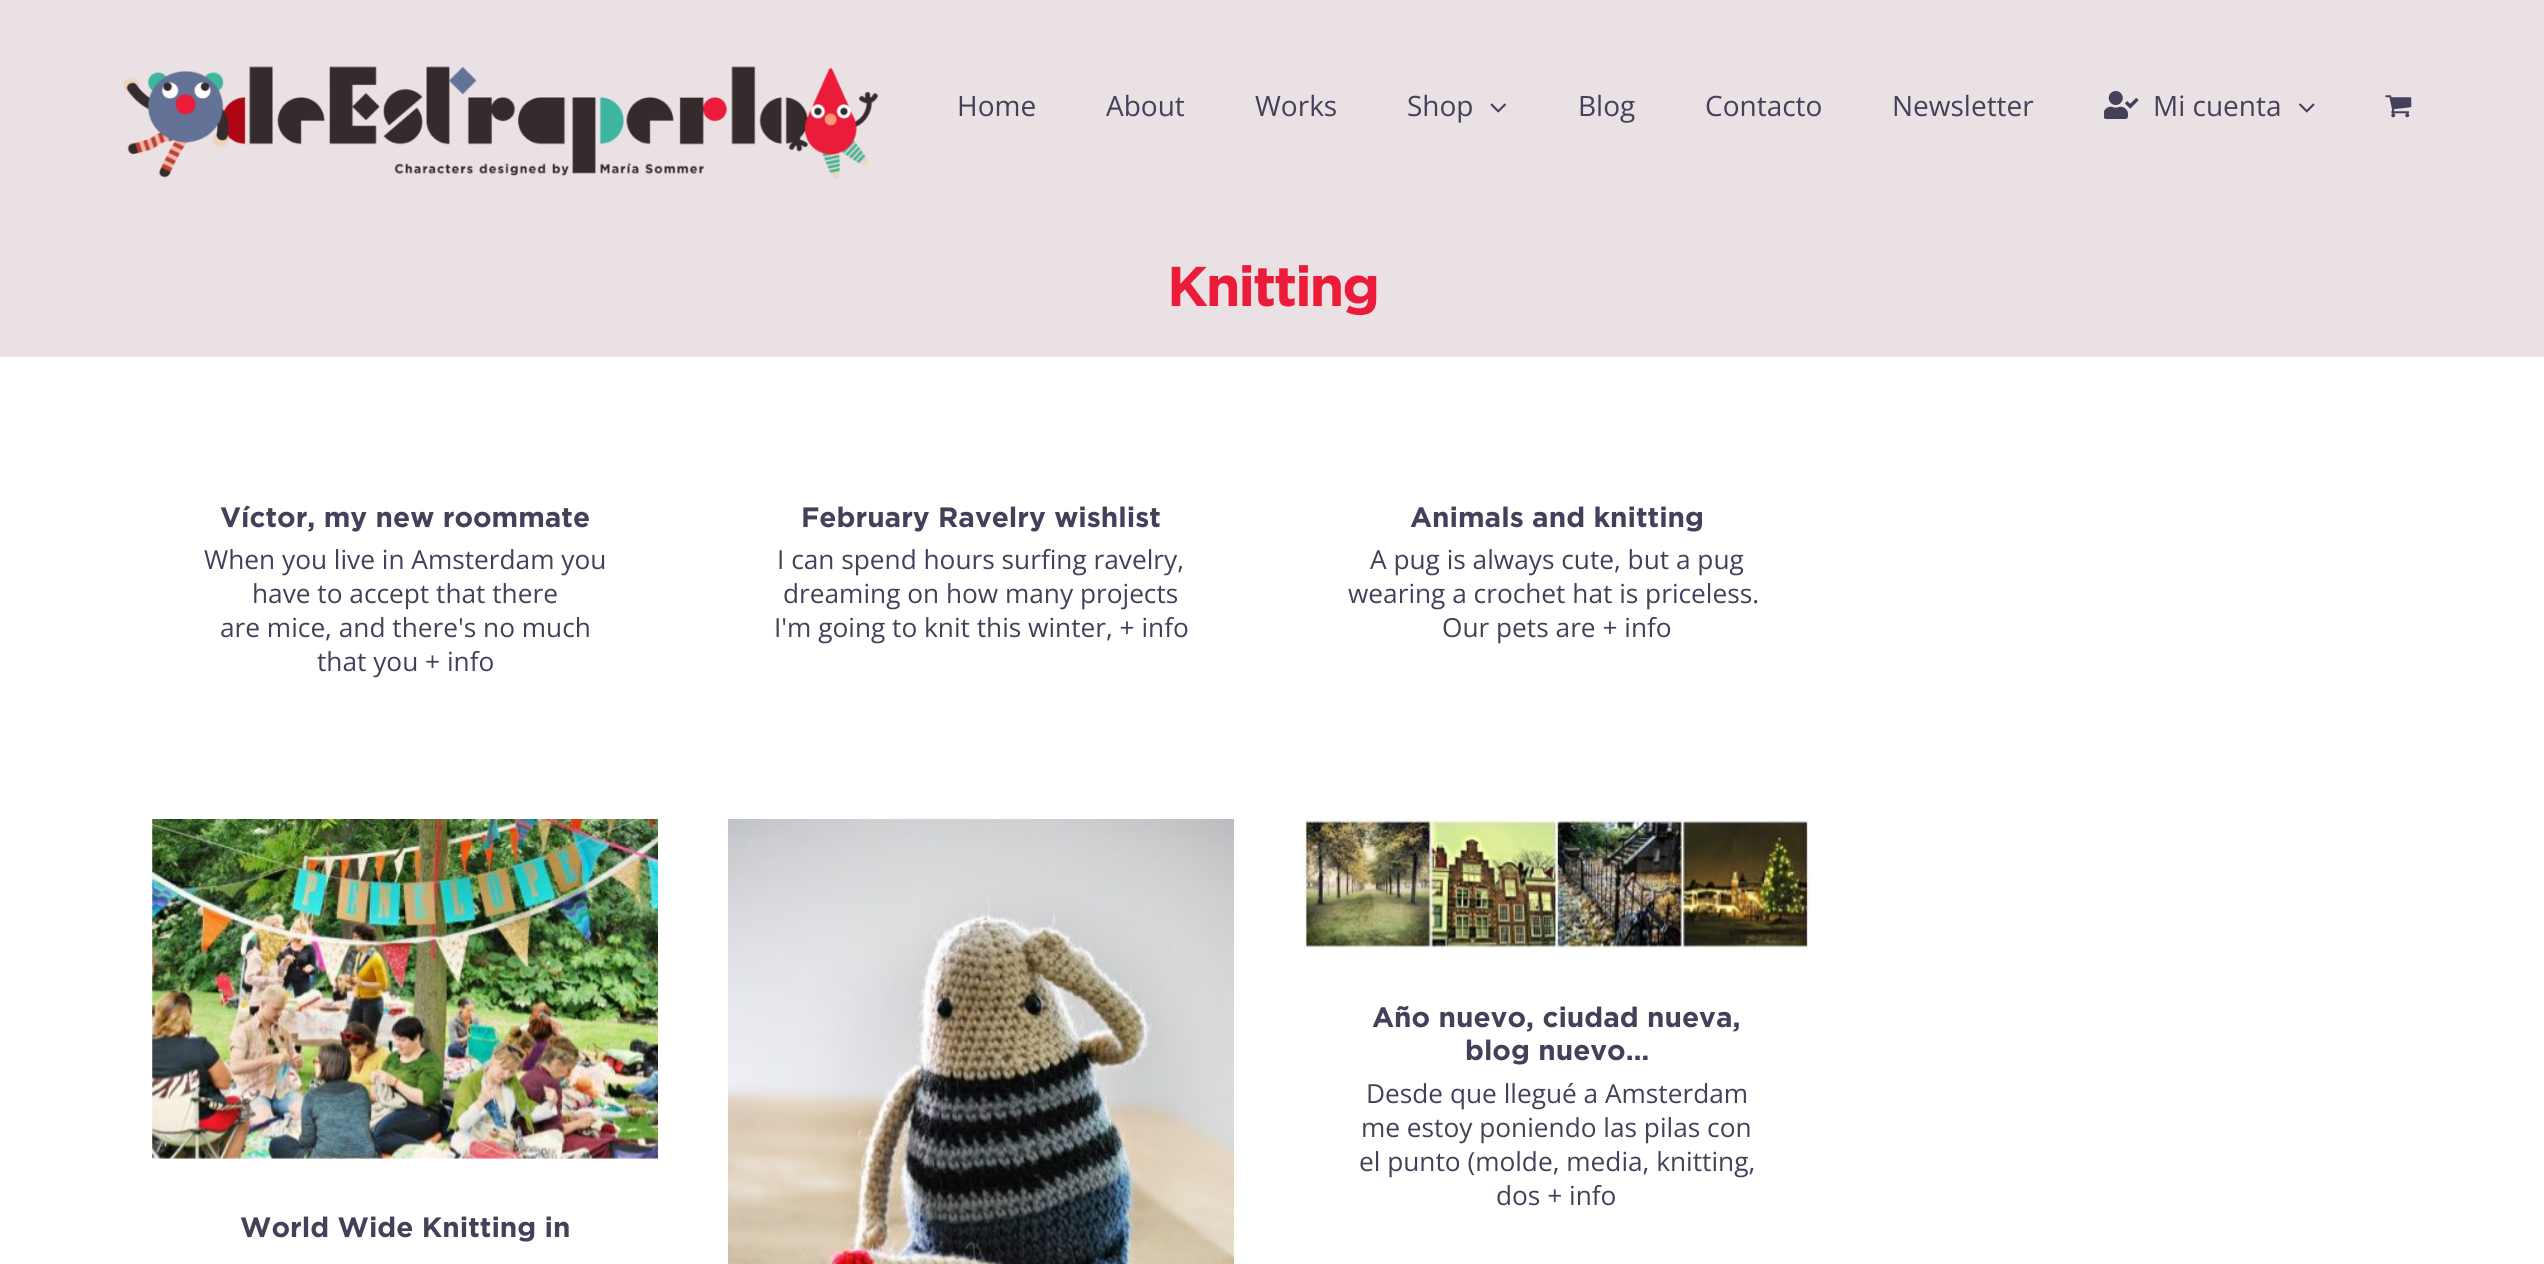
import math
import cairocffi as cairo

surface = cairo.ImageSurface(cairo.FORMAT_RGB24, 2544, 1264)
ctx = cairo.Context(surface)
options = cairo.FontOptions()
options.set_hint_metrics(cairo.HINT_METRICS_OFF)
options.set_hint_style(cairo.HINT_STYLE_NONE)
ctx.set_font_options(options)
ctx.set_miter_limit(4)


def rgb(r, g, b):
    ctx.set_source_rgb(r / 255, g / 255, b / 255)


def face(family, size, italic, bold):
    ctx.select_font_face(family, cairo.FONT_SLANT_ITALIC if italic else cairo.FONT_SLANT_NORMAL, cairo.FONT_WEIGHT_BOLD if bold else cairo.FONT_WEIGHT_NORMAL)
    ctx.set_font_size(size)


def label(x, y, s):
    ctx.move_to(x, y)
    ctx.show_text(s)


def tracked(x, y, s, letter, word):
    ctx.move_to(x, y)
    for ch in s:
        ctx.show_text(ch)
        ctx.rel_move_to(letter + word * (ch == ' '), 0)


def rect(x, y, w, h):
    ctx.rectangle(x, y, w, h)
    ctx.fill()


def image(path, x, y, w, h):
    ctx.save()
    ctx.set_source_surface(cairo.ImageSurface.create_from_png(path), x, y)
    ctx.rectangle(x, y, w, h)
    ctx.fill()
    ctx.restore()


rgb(255, 255, 255)
ctx.paint()
rgb(234, 225, 228)
rect(0, 0, 2544, 357)
image('image0.png', 123, 66, 756, 114)
face('Open Sans', 28, 0, 0)
rgb(68, 64, 90)
label(957, 116, 'Home')
label(1106, 116, 'About')
label(1255, 116, 'Works')
label(1407, 116, 'Shop')
image('image1.png', 1490, 103, 16, 10)
label(1578, 116, 'Blog')
label(1705, 116, 'Contacto')
label(1892, 116, 'Newsletter')
image('image2.png', 2104, 91, 35, 28)
label(2153, 116, 'Mi cuenta')
image('image3.png', 2299, 103, 16, 10)
image('image4.png', 2385, 95, 27, 23)
face('Gotham', 56, 0, 1)
rgb(234, 28, 57)
tracked(1167, 306, 'Knitting', -2.25, 0)
face('Gotham', 28, 0, 1)
rgb(68, 64, 90)
label(220, 527, 'Víctor, my new roommate')
face('Open Sans', 26.25, 0, 0)
label(204, 569, 'When you live in Amsterdam you')
label(252, 603, 'have to accept that there')
label(220, 637, 'are mice, and there\'s no much')
label(317, 671, 'that you + info')
face('Gotham', 28, 0, 1)
label(801, 527, 'February Ravelry wishlist')
face('Open Sans', 26.25, 0, 0)
label(777, 569, 'I can spend hours surfing ravelry,')
label(783, 603, 'dreaming on how many projects')
label(774, 637, 'I\'m going to knit this winter, + info')
face('Gotham', 28, 0, 1)
label(1410, 527, 'Animals and knitting')
face('Open Sans', 26.25, 0, 0)
label(1370, 569, 'A pug is always cute, but a pug')
label(1348, 603, 'wearing a crochet hat is priceless.')
label(1442, 637, 'Our pets are + info')
image('image5.png', 728, 819, 506, 445)
image('image6.png', 1303, 819, 507, 130)
face('Gotham', 28, 0, 1)
label(1372, 1027, 'Año nuevo, ciudad nueva,')
label(1465, 1060, 'blog nuevo…')
face('Open Sans', 26.25, 0, 0)
label(1366, 1103, 'Desde que llegué a Amsterdam')
label(1361, 1137, 'me estoy poniendo las pilas con')
label(1359, 1171, 'el punto (molde, media, knitting,')
label(1496, 1205, 'dos + info')
image('image7.png', 152, 819, 506, 340)
face('Gotham', 28, 0, 1)
label(240, 1237, 'World Wide Knitting in')
surface.write_to_png('render.png')
